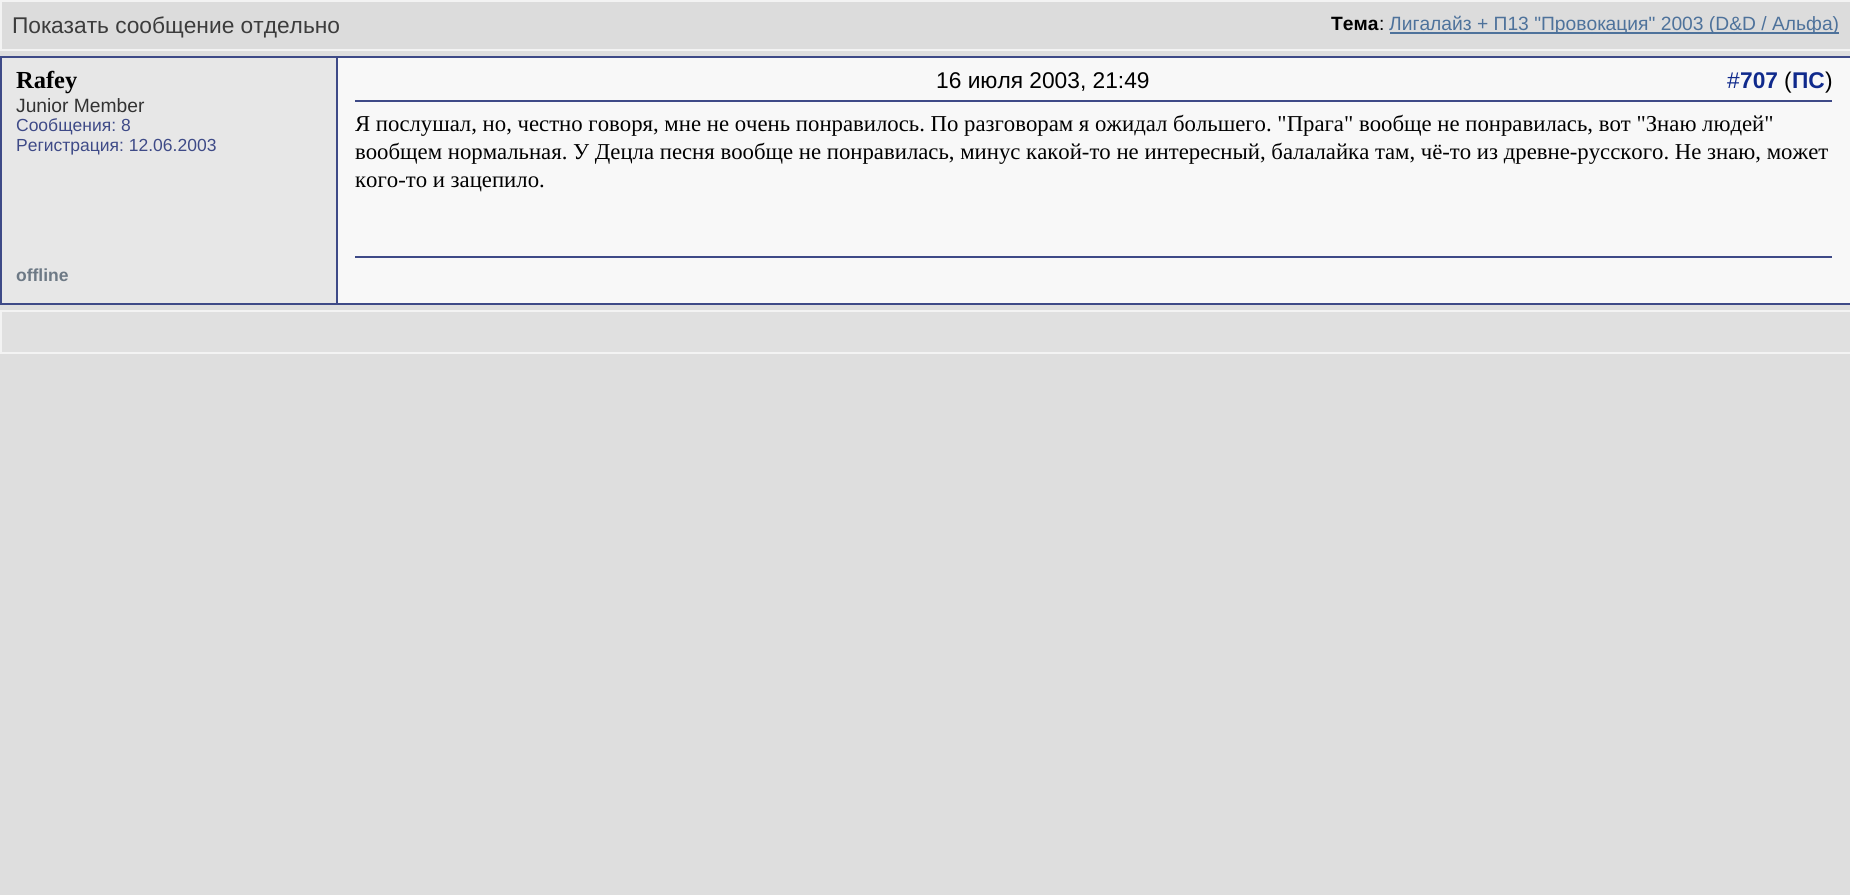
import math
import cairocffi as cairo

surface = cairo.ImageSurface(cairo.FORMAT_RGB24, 1850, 895)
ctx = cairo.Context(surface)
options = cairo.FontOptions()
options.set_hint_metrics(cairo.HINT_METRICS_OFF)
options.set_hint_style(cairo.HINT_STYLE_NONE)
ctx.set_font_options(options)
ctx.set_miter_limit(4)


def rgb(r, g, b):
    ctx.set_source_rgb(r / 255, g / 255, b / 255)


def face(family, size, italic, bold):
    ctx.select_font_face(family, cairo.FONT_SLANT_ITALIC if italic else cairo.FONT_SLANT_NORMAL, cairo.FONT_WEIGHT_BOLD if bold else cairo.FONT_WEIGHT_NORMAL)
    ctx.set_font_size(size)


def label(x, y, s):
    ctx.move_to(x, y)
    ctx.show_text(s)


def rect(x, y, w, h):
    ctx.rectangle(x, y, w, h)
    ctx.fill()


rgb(222, 222, 222)
ctx.paint()
rgb(243, 243, 243)
rect(0, 0, 1850, 51)
rgb(220, 220, 220)
rect(2, 2, 1848, 47)
face('Liberation Sans', 22.75, 0, 0)
rgb(60, 60, 60)
label(12, 33, 'Показать сообщение отдельно')
face('Liberation Sans', 19.25, 0, 1)
rgb(0, 0, 0)
label(1331, 30, 'Тема')
face('Liberation Sans', 19.25, 0, 0)
label(1379, 30, ':')
rgb(78, 114, 155)
rect(1390, 32, 449, 2)
label(1389, 30, 'Лигалайз + П13 "Провокация" 2003 (D&D / Альфа)')
ctx.rectangle(1, 57, 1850, 247)
rgb(62, 74, 135)
ctx.stroke()
rgb(231, 231, 231)
rect(2, 58, 334, 245)
rgb(62, 74, 135)
rect(336, 58, 2, 245)
face('Liberation Serif', 24.5, 0, 1)
rgb(0, 0, 0)
label(16, 88, 'Rafey')
face('Liberation Sans', 19.25, 0, 0)
rgb(51, 51, 51)
label(16, 112, 'Junior Member')
face('Liberation Sans', 17.5, 0, 0)
rgb(62, 74, 135)
label(16, 131, 'Сообщения: 8')
label(16, 151, 'Регистрация: 12.06.2003')
rgb(248, 248, 248)
rect(338, 58, 1512, 245)
rgb(62, 74, 135)
rect(355, 100, 1477, 2)
face('Liberation Sans', 22.75, 0, 0)
rgb(0, 0, 0)
label(936, 88, '16 июля 2003, 21:49')
rgb(16, 42, 140)
label(1727, 88, '#')
face('Liberation Sans', 22.75, 0, 1)
label(1740, 88, '707')
face('Liberation Sans', 22.75, 0, 0)
rgb(0, 0, 0)
label(1784, 88, '(')
face('Liberation Sans', 22.75, 0, 1)
rgb(16, 42, 140)
label(1792, 88, 'ПС')
face('Liberation Sans', 22.75, 0, 0)
rgb(0, 0, 0)
label(1825, 88, ')')
face('Liberation Serif', 22.75, 0, 0)
label(355, 131, 'Я послушал, но, честно говоря, мне не очень понравилось. По разговорам я ожидал большего. "Прага" вообще не понравилась, вот "Знаю людей"')
label(355, 159, 'вообщем нормальная. У Децла песня вообще не понравилась, минус какой-то не интересный, балалайка там, чё-то из древне-русского. Не знаю, может')
label(355, 187, 'кого-то и зацепило.')
rgb(62, 74, 135)
rect(355, 256, 1477, 2)
face('Liberation Sans', 17.5, 0, 1)
rgb(109, 121, 133)
label(16, 281, 'offline')
rgb(243, 243, 243)
rect(0, 310, 1850, 44)
rgb(224, 224, 224)
rect(2, 312, 1848, 40)
surface.write_to_png('render.png')
